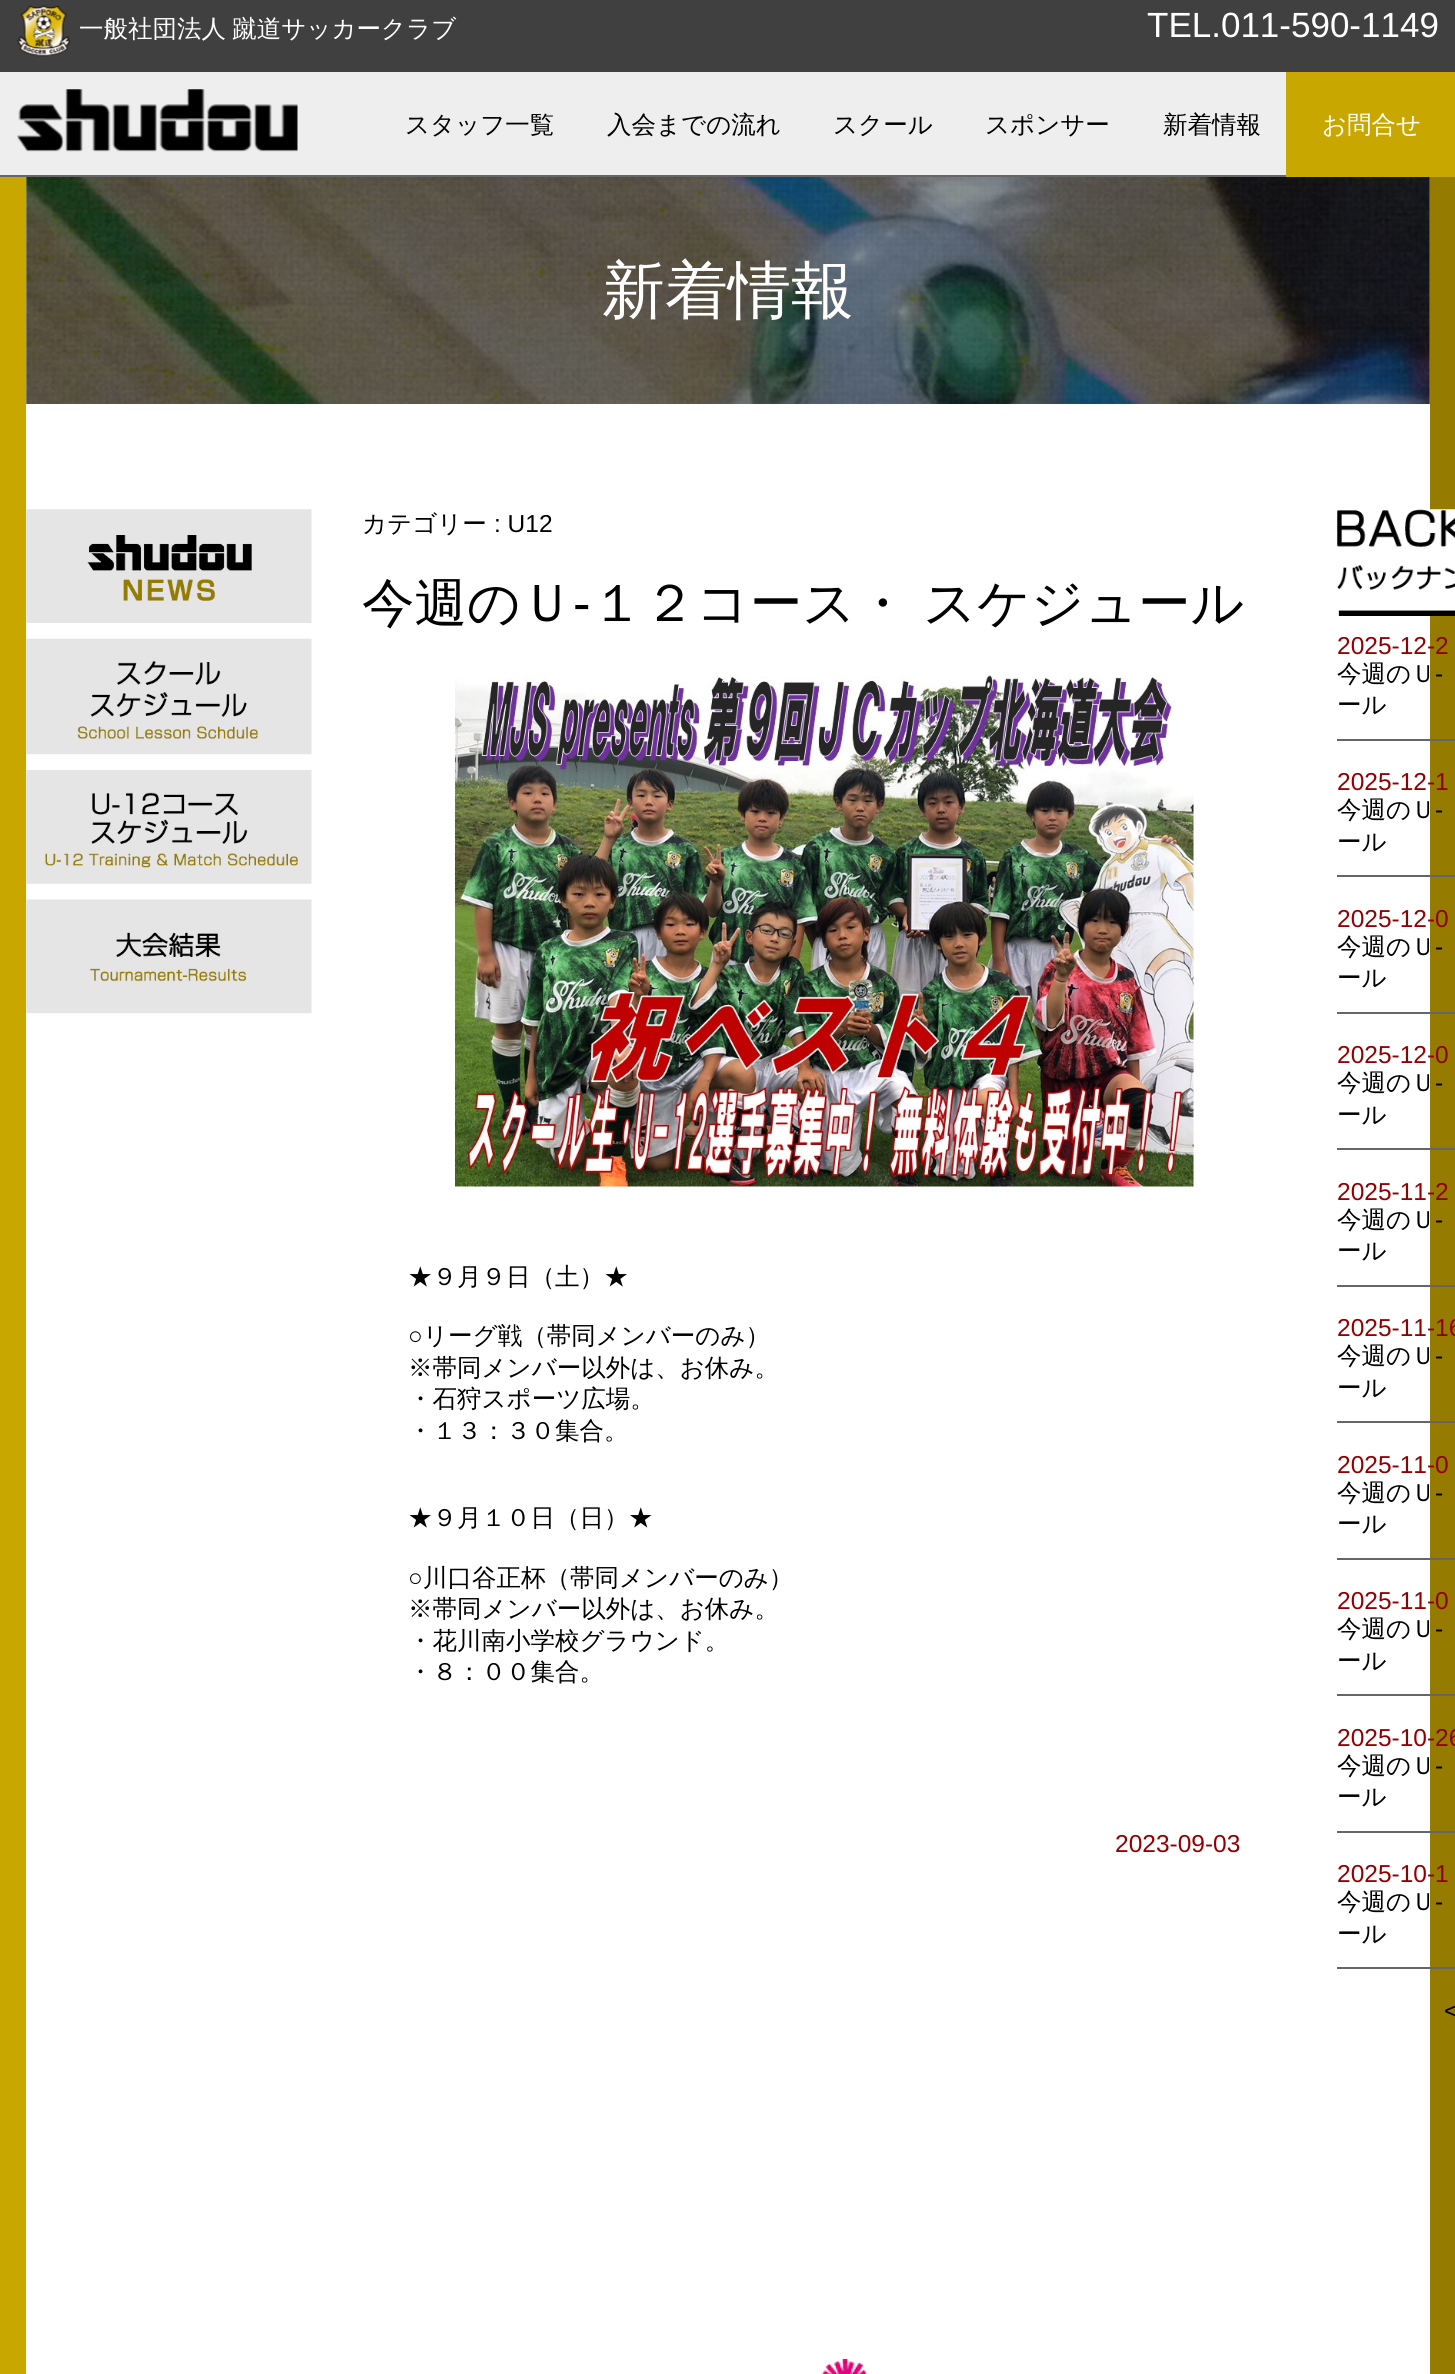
import math
import cairocffi as cairo

surface = cairo.ImageSurface(cairo.FORMAT_RGB24, 1455, 2374)
ctx = cairo.Context(surface)
options = cairo.FontOptions()
options.set_hint_metrics(cairo.HINT_METRICS_OFF)
options.set_hint_style(cairo.HINT_STYLE_NONE)
ctx.set_font_options(options)
ctx.set_miter_limit(4)


def rgb(r, g, b):
    ctx.set_source_rgb(r / 255, g / 255, b / 255)


def face(family, size, italic, bold):
    ctx.select_font_face(family, cairo.FONT_SLANT_ITALIC if italic else cairo.FONT_SLANT_NORMAL, cairo.FONT_WEIGHT_BOLD if bold else cairo.FONT_WEIGHT_NORMAL)
    ctx.set_font_size(size)


def label(x, y, s):
    ctx.move_to(x, y)
    ctx.show_text(s)


def tracked(x, y, s, letter, word):
    ctx.move_to(x, y)
    for ch in s:
        ctx.show_text(ch)
        ctx.rel_move_to(letter + word * (ch == ' '), 0)


def rect(x, y, w, h):
    ctx.rectangle(x, y, w, h)
    ctx.fill()


def image(path, x, y, w, h):
    ctx.save()
    ctx.set_source_surface(cairo.ImageSurface.create_from_png(path), x, y)
    ctx.rectangle(x, y, w, h)
    ctx.fill()
    ctx.restore()


rgb(255, 255, 255)
ctx.paint()
rgb(238, 238, 238)
rect(0, 72, 1286, 103)
rgb(102, 102, 102)
rect(0, 175, 1286, 2)
rgb(64, 64, 64)
rect(0, 0, 1455, 72)
image('image0.png', 17, 5, 54, 52)
face('WenQuanYi Zen Hei Medium', 24.5, 0, 0)
rgb(255, 255, 255)
tracked(79, 37, '一般社団法人 蹴道サッカークラブ', 0, -1)
face('Liberation Sans', 35, 0, 0)
label(1147, 37, 'TEL.011-590-1149')
image('image1.png', 17, 89, 281, 63)
face('WenQuanYi Zen Hei Medium', 24.5, 0, 0)
rgb(0, 0, 0)
label(405, 133, 'スタッフ一覧')
label(607, 133, '入会までの流れ')
label(833, 133, 'スクール')
label(985, 133, 'スポンサー')
label(1163, 133, '新着情報')
rgb(200, 167, 0)
rect(1286, 72, 169, 105)
rgb(255, 255, 255)
label(1322, 133, 'お問合せ')
rgb(149, 124, 0)
rect(1430, 177, 25, 2197)
rgb(200, 167, 0)
rect(0, 177, 26, 2197)
image('image2.png', 26, 177, 1404, 227)
face('WenQuanYi Zen Hei Medium', 63, 0, 0)
rgb(255, 255, 255)
label(602, 312, '新着情報')
image('image3.png', 26, 509, 286, 114)
image('image4.png', 26, 638, 286, 117)
image('image5.png', 26, 770, 286, 114)
image('image6.png', 26, 899, 286, 115)
face('WenQuanYi Zen Hei Medium', 24.5, 0, 0)
rgb(0, 0, 0)
label(362, 532, 'カテゴリー')
face('Liberation Sans', 24.5, 0, 0)
label(494, 532, ': U12')
face('WenQuanYi Zen Hei Medium', 52.5, 0, 0)
label(362, 621, '今週のＵ')
face('Liberation Sans', 52.5, 0, 0)
label(573, 621, '‐')
face('WenQuanYi Zen Hei Medium', 52.5, 0, 0)
tracked(591, 621, '１２コース・ スケジュール', 0, -1)
image('image7.png', 455, 673, 739, 514)
face('WenQuanYi Zen Hei Medium', 24.5, 0, 0)
label(408, 1285, '★９月９日（土）★')
face('Liberation Sans', 24.5, 0, 0)
label(408, 1344, '○')
face('WenQuanYi Zen Hei Medium', 24.5, 0, 0)
label(423, 1344, 'リーグ戦（帯同メンバーのみ）')
label(408, 1376, '※帯同メンバー以外は、お休み。')
label(408, 1407, '・石狩スポーツ広場。')
label(408, 1439, '・１３：３０集合。')
label(408, 1526, '★９月１０日（日）★')
face('Liberation Sans', 24.5, 0, 0)
label(408, 1586, '○')
face('WenQuanYi Zen Hei Medium', 24.5, 0, 0)
label(423, 1586, '川口谷正杯（帯同メンバーのみ）')
label(408, 1617, '※帯同メンバー以外は、お休み。')
label(408, 1649, '・花川南小学校グラウンド。')
label(408, 1680, '・８：００集合。')
face('Liberation Sans', 24.5, 0, 0)
rgb(147, 0, 2)
label(1115, 1852, '2023-09-03')
image('image8.png', 1337, 509, 118, 107)
rgb(102, 102, 102)
rect(1337, 739, 118, 2)
rgb(147, 0, 2)
label(1337, 654, '2025-12-2')
face('WenQuanYi Zen Hei Medium', 24.5, 0, 0)
rgb(0, 0, 0)
label(1337, 682, '今週のＵ')
face('Liberation Sans', 24.5, 0, 0)
label(1435, 682, '‐')
face('WenQuanYi Zen Hei Medium', 24.5, 0, 0)
label(1337, 713, 'ール')
rgb(102, 102, 102)
rect(1337, 875, 118, 2)
face('Liberation Sans', 24.5, 0, 0)
rgb(147, 0, 2)
label(1337, 790, '2025-12-1')
face('WenQuanYi Zen Hei Medium', 24.5, 0, 0)
rgb(0, 0, 0)
label(1337, 818, '今週のＵ')
face('Liberation Sans', 24.5, 0, 0)
label(1435, 818, '‐')
face('WenQuanYi Zen Hei Medium', 24.5, 0, 0)
label(1337, 850, 'ール')
rgb(102, 102, 102)
rect(1337, 1012, 118, 2)
face('Liberation Sans', 24.5, 0, 0)
rgb(147, 0, 2)
label(1337, 927, '2025-12-0')
face('WenQuanYi Zen Hei Medium', 24.5, 0, 0)
rgb(0, 0, 0)
label(1337, 955, '今週のＵ')
face('Liberation Sans', 24.5, 0, 0)
label(1435, 955, '‐')
face('WenQuanYi Zen Hei Medium', 24.5, 0, 0)
label(1337, 986, 'ール')
rgb(102, 102, 102)
rect(1337, 1148, 118, 2)
face('Liberation Sans', 24.5, 0, 0)
rgb(147, 0, 2)
label(1337, 1063, '2025-12-0')
face('WenQuanYi Zen Hei Medium', 24.5, 0, 0)
rgb(0, 0, 0)
label(1337, 1091, '今週のＵ')
face('Liberation Sans', 24.5, 0, 0)
label(1435, 1091, '‐')
face('WenQuanYi Zen Hei Medium', 24.5, 0, 0)
label(1337, 1123, 'ール')
rgb(102, 102, 102)
rect(1337, 1285, 118, 2)
face('Liberation Sans', 24.5, 0, 0)
rgb(147, 0, 2)
label(1337, 1200, '2025-11-2')
face('WenQuanYi Zen Hei Medium', 24.5, 0, 0)
rgb(0, 0, 0)
label(1337, 1228, '今週のＵ')
face('Liberation Sans', 24.5, 0, 0)
label(1435, 1228, '‐')
face('WenQuanYi Zen Hei Medium', 24.5, 0, 0)
label(1337, 1259, 'ール')
rgb(102, 102, 102)
rect(1337, 1421, 118, 2)
face('Liberation Sans', 24.5, 0, 0)
rgb(147, 0, 2)
label(1337, 1336, '2025-11-16')
face('WenQuanYi Zen Hei Medium', 24.5, 0, 0)
rgb(0, 0, 0)
label(1337, 1364, '今週のＵ')
face('Liberation Sans', 24.5, 0, 0)
label(1435, 1364, '‐')
face('WenQuanYi Zen Hei Medium', 24.5, 0, 0)
label(1337, 1396, 'ール')
rgb(102, 102, 102)
rect(1337, 1558, 118, 2)
face('Liberation Sans', 24.5, 0, 0)
rgb(147, 0, 2)
label(1337, 1473, '2025-11-0')
face('WenQuanYi Zen Hei Medium', 24.5, 0, 0)
rgb(0, 0, 0)
label(1337, 1501, '今週のＵ')
face('Liberation Sans', 24.5, 0, 0)
label(1435, 1501, '‐')
face('WenQuanYi Zen Hei Medium', 24.5, 0, 0)
label(1337, 1532, 'ール')
rgb(102, 102, 102)
rect(1337, 1694, 118, 2)
face('Liberation Sans', 24.5, 0, 0)
rgb(147, 0, 2)
label(1337, 1609, '2025-11-0')
face('WenQuanYi Zen Hei Medium', 24.5, 0, 0)
rgb(0, 0, 0)
label(1337, 1637, '今週のＵ')
face('Liberation Sans', 24.5, 0, 0)
label(1435, 1637, '‐')
face('WenQuanYi Zen Hei Medium', 24.5, 0, 0)
label(1337, 1669, 'ール')
rgb(102, 102, 102)
rect(1337, 1831, 118, 2)
face('Liberation Sans', 24.5, 0, 0)
rgb(147, 0, 2)
label(1337, 1746, '2025-10-26')
face('WenQuanYi Zen Hei Medium', 24.5, 0, 0)
rgb(0, 0, 0)
label(1337, 1774, '今週のＵ')
face('Liberation Sans', 24.5, 0, 0)
label(1435, 1774, '‐')
face('WenQuanYi Zen Hei Medium', 24.5, 0, 0)
label(1337, 1805, 'ール')
rgb(102, 102, 102)
rect(1337, 1967, 118, 2)
face('Liberation Sans', 24.5, 0, 0)
rgb(147, 0, 2)
label(1337, 1882, '2025-10-1')
face('WenQuanYi Zen Hei Medium', 24.5, 0, 0)
rgb(0, 0, 0)
label(1337, 1910, '今週のＵ')
face('Liberation Sans', 24.5, 0, 0)
label(1435, 1910, '‐')
face('WenQuanYi Zen Hei Medium', 24.5, 0, 0)
label(1337, 1942, 'ール')
face('Liberation Sans', 24.5, 0, 0)
label(1444, 2019, '<')
image('image9.png', 821, 2359, 47, 15)
surface.write_to_png('render.png')
